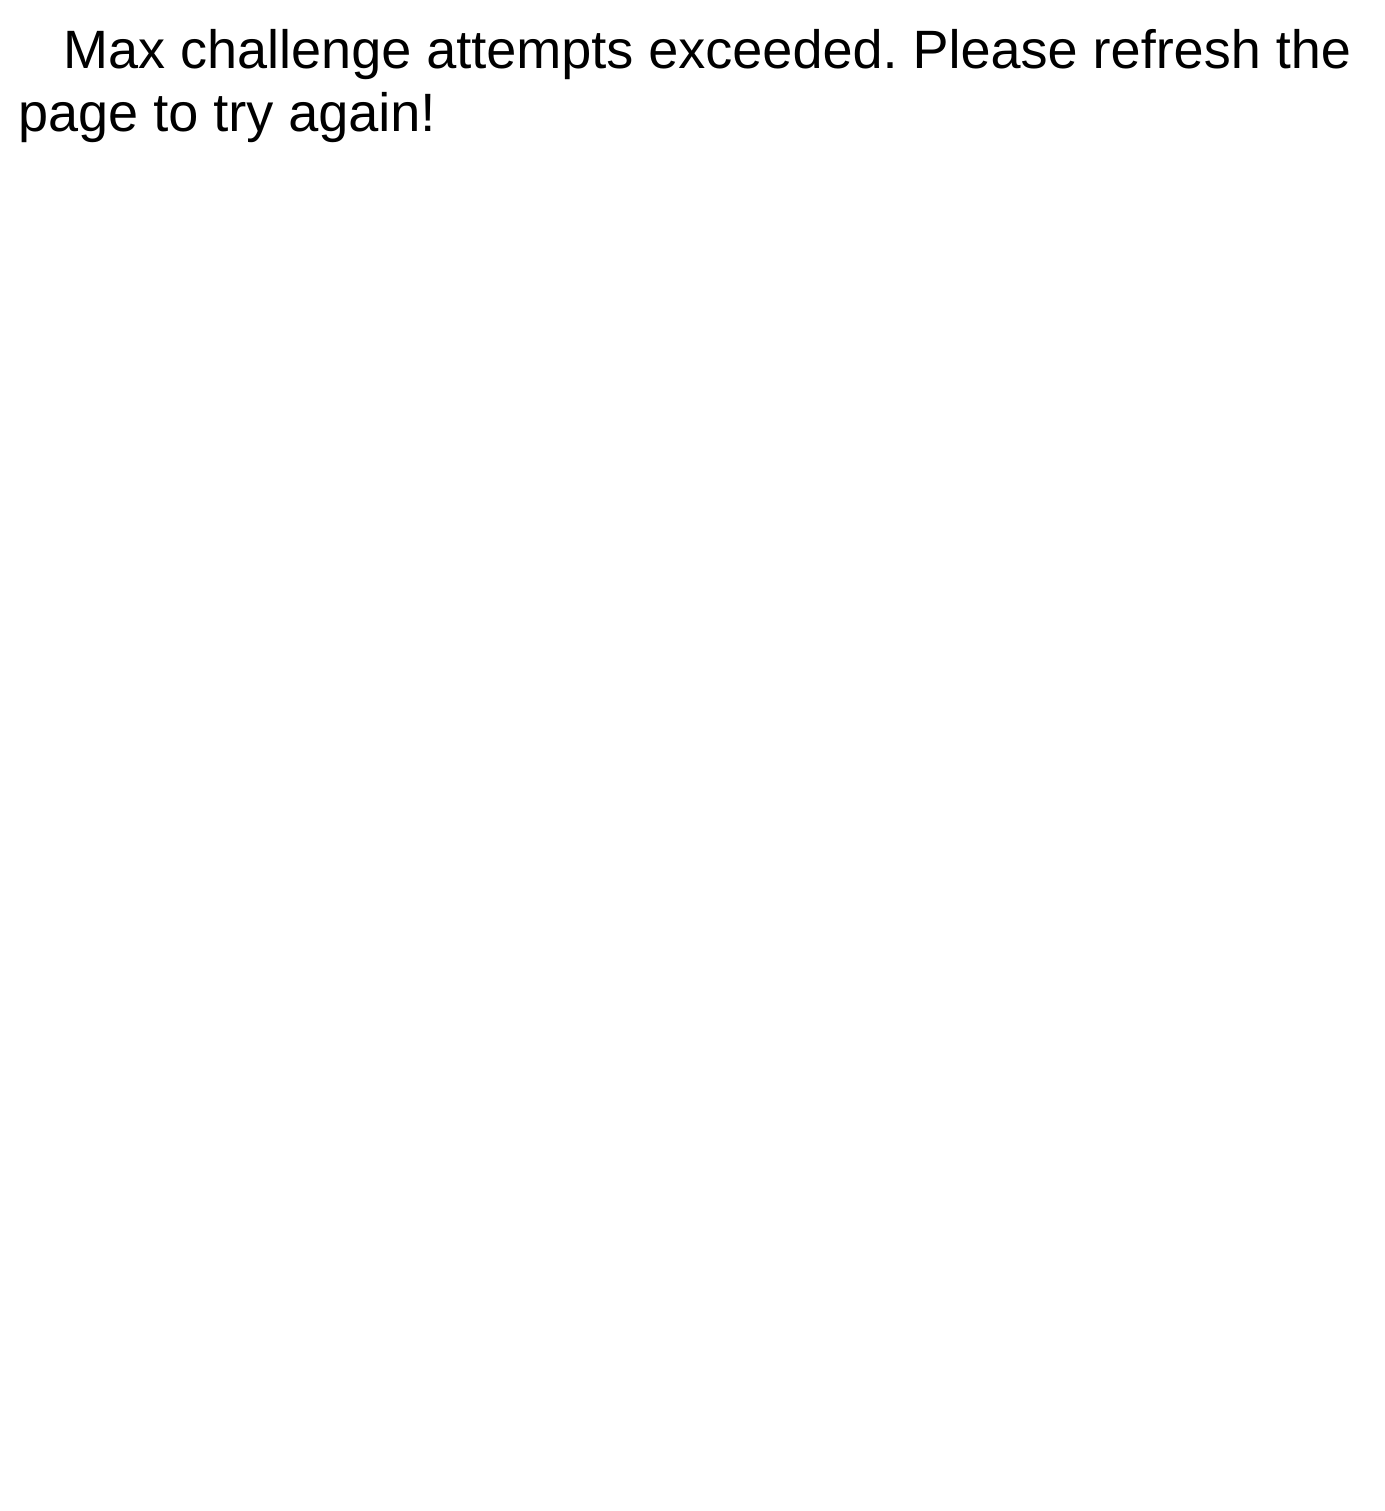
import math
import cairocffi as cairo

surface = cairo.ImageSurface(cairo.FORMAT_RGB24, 1385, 1511)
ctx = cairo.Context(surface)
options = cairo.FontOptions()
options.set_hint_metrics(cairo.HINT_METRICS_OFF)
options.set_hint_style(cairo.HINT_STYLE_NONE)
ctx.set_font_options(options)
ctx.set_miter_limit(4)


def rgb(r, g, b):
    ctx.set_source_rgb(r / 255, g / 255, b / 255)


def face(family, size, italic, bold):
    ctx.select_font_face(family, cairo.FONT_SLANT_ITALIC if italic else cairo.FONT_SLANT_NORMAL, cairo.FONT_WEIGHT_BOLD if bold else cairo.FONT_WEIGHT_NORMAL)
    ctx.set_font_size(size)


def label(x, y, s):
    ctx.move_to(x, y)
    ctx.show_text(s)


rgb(255, 255, 255)
ctx.paint()
face('Liberation Sans', 54, 0, 0)
rgb(0, 0, 0)
label(63, 68, 'Max challenge attempts exceeded. Please refresh the')
label(18, 131, 'page to try again!')
surface.write_to_png('render.png')
